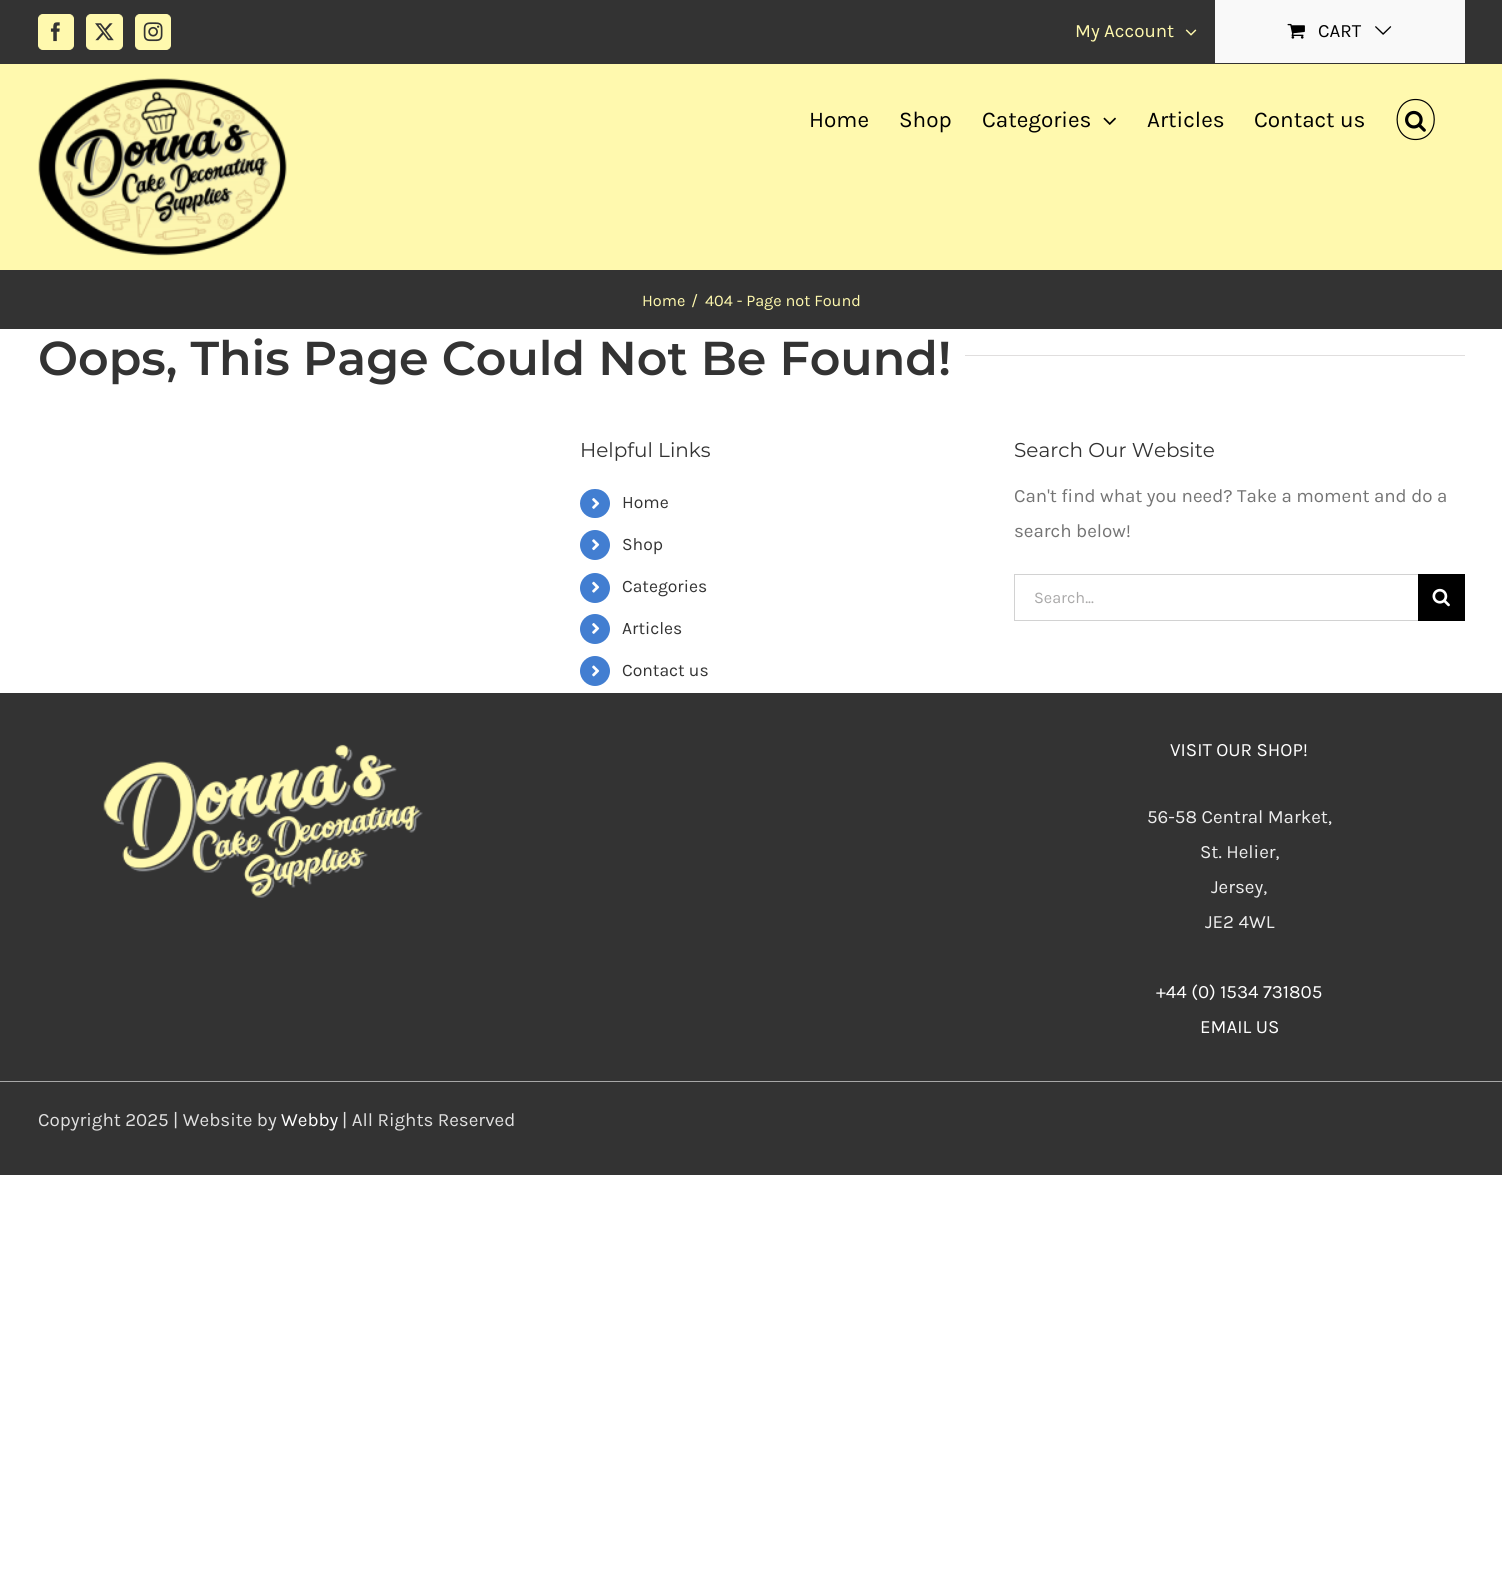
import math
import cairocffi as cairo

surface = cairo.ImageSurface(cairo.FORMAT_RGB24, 1502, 1575)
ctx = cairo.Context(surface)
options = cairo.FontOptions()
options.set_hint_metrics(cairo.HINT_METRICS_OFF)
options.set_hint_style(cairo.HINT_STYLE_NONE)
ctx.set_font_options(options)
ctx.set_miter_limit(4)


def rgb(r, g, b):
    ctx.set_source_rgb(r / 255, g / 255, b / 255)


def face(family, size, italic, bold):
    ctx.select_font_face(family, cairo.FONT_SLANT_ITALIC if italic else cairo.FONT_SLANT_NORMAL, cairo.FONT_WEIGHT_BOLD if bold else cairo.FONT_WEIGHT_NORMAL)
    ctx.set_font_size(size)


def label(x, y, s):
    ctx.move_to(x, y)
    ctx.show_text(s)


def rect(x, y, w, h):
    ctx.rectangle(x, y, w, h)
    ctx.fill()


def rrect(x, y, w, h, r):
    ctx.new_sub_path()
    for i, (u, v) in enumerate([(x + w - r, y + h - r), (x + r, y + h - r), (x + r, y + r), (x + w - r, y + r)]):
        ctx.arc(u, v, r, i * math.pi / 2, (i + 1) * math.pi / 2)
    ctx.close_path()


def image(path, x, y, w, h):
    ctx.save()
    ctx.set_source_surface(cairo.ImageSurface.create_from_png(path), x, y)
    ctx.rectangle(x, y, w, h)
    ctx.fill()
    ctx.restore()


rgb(255, 255, 255)
ctx.paint()
rgb(51, 51, 51)
rect(0, 0, 1502, 64)
rgb(255, 249, 174)
rrect(38.5, 14.5, 35, 35, 4.5)
ctx.fill_preserve()
ctx.set_line_width(1)
ctx.stroke()
image('image0.png', 50, 22, 10, 20)
rrect(86.5, 14.5, 36, 35, 4.5)
ctx.fill_preserve()
ctx.stroke()
image('image1.png', 95, 23, 19, 18)
rrect(135.5, 14.5, 35, 35, 4.5)
ctx.fill_preserve()
ctx.stroke()
image('image2.png', 143, 22, 20, 20)
face('Karla', 18.75, 0, 0)
label(1075, 37, 'My Account')
image('image3.png', 1185, 29, 12, 7)
rgb(249, 249, 249)
rect(1215, 0, 250, 63)
image('image4.png', 1287, 23, 18, 16)
rgb(0, 0, 0)
label(1318, 37, 'CART')
image('image5.png', 1375, 26, 17, 9)
rgb(255, 249, 174)
rect(0, 64, 1502, 206)
image('image6.png', 38, 78, 249, 178)
face('Karla', 22.5, 0, 0)
rgb(0, 0, 0)
label(809, 127, 'Home')
label(899, 127, 'Shop')
label(982, 127, 'Categories')
image('image7.png', 1103, 117, 13, 8)
label(1147, 127, 'Articles')
label(1254, 127, 'Contact us')
ctx.new_path()
ctx.move_to(1415.5, 99.5)
ctx.curve_to(1440.5, 99.5, 1440.5, 139.5, 1415.5, 139.5)
ctx.curve_to(1391, 139.5, 1391, 99.5, 1415.5, 99.5)
ctx.close_path()
ctx.set_line_width(1.2)
ctx.stroke()
image('image8.png', 1405, 110, 21, 22)
rgb(51, 51, 51)
rect(0, 270, 1502, 59)
face('Karla', 16.25, 0, 0)
rgb(255, 249, 174)
label(642, 306, 'Home')
label(691, 306, '/')
label(705, 306, '404 - Page not Found')
face('Montserrat SemiBold', 47.5, 0, 0)
rgb(51, 51, 51)
label(38, 375, 'Oops, This Page Could Not Be Found!')
rgb(224, 222, 222)
rect(965, 355, 500, 1)
face('Montserrat', 20, 0, 0)
rgb(51, 51, 51)
label(580, 457, 'Helpful Links')
rgb(66, 126, 209)
rrect(580, 489, 30, 29, 14.5)
ctx.fill()
image('image9.png', 592, 498, 8, 11)
face('Karla', 17.5, 0, 0)
rgb(51, 51, 51)
label(622, 508, 'Home')
rgb(66, 126, 209)
ctx.new_path()
ctx.arc(595, 545, 15, 0, 2 * math.pi)
ctx.fill()
image('image10.png', 592, 539, 8, 12)
rgb(51, 51, 51)
label(622, 550, 'Shop')
rgb(66, 126, 209)
ctx.new_path()
ctx.arc(595, 588, 15, 0, 2 * math.pi)
ctx.fill()
image('image11.png', 592, 581, 8, 12)
rgb(51, 51, 51)
label(622, 592, 'Categories')
rgb(66, 126, 209)
ctx.new_path()
ctx.arc(595, 629, 15, 0, 2 * math.pi)
ctx.fill()
image('image9.png', 592, 623, 8, 11)
rgb(51, 51, 51)
label(622, 634, 'Articles')
rgb(66, 126, 209)
ctx.new_path()
ctx.arc(595, 671, 15, 0, 2 * math.pi)
ctx.fill()
image('image12.png', 592, 665, 8, 12)
rgb(51, 51, 51)
label(622, 676, 'Contact us')
face('Montserrat', 20, 0, 0)
label(1014, 457, 'Search Our Website')
face('Karla', 18.75, 0, 0)
rgb(116, 116, 116)
label(1014, 502, 'Can\'t find what you need? Take a moment and do a')
label(1014, 537, 'search below!')
rgb(210, 210, 210)
rect(1014, 574, 404, 1)
rect(1014, 620, 404, 1)
rect(1014, 574, 1, 47)
face('Karla', 16.25, 0, 0)
rgb(170, 169, 169)
label(1034, 603, 'Search...')
rgb(0, 0, 0)
rect(1418, 574, 47, 47)
image('image13.png', 1432, 588, 18, 19)
rgb(51, 51, 51)
rect(0, 693, 1502, 388)
image('image14.png', 103, 744, 320, 154)
face('Karla', 18.75, 0, 0)
rgb(255, 255, 255)
label(1170, 756, 'VISIT OUR SHOP!')
rgb(237, 237, 237)
label(1147, 823, '56-58 Central Market,')
label(1200, 858, 'St. Helier,')
label(1211, 893, 'Jersey,')
label(1205, 928, 'JE2 4WL')
rgb(255, 255, 255)
label(1156, 998, '+44 (0) 1534 731805')
label(1200, 1033, 'EMAIL US')
rgb(51, 51, 51)
rect(0, 1082, 1502, 93)
rgb(168, 168, 168)
rect(0, 1081, 1502, 1)
rgb(224, 224, 224)
label(38, 1126, 'Copyright 2025 | Website by')
rgb(255, 255, 255)
label(281, 1126, 'Webby')
rgb(224, 224, 224)
label(342, 1126, '| All Rights Reserved')
surface.write_to_png('render.png')
